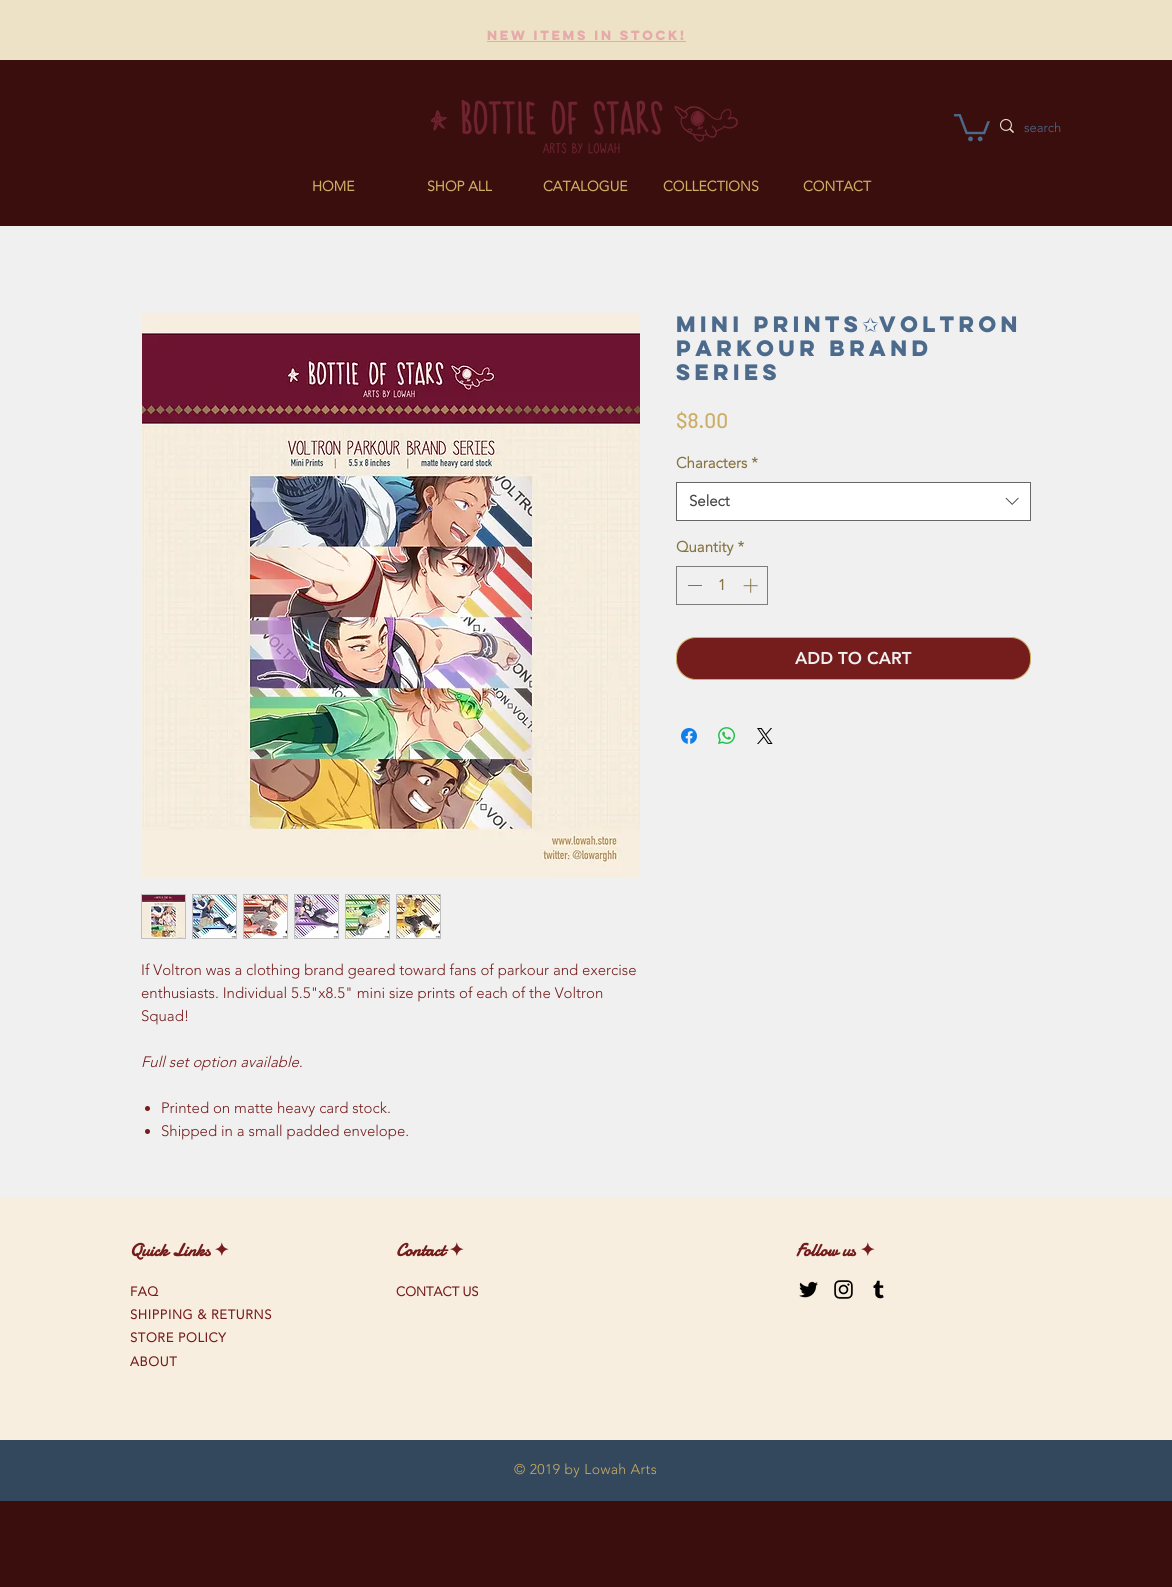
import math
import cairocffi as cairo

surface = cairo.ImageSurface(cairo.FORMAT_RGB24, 1172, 1587)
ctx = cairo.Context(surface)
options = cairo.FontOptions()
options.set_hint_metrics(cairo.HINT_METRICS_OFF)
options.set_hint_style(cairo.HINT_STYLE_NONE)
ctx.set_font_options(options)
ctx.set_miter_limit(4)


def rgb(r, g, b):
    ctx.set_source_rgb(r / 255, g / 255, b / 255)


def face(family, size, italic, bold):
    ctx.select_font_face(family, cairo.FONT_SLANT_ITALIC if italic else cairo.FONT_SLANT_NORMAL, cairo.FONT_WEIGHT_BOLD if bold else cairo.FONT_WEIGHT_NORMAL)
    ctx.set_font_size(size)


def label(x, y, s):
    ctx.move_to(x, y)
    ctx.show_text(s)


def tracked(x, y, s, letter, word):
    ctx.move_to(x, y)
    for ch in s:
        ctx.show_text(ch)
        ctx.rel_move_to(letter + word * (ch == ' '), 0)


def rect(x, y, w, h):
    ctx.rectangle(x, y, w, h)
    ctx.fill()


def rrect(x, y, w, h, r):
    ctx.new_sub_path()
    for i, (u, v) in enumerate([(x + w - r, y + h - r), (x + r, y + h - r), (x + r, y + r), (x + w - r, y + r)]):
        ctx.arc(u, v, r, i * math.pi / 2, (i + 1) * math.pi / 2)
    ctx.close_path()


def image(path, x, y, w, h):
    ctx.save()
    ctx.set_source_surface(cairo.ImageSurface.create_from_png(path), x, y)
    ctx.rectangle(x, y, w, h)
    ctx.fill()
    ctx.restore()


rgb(59, 14, 14)
ctx.paint()
rgb(238, 226, 198)
rect(0, 0, 1172, 60)
face('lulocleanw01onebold', 12, 0, 1)
rgb(229, 171, 171)
label(487, 40, 'New items in stock!')
rect(487, 41, 199, 1)
image('image0.png', 431, 99, 307, 55)
image('image1.png', 954, 114, 36, 28)
image('image2.png', 1000, 119, 14, 14)
face('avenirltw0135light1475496 Light', 13, 0, 0)
rgb(76, 106, 140)
label(1024, 132, 'search')
face('avenirltw0135light1475496', 14, 0, 1)
rgb(204, 174, 100)
label(312, 191, 'HOME')
label(427, 191, 'SHOP ALL')
label(543, 191, 'CATALOGUE')
label(663, 191, 'COLLECTIONS')
label(803, 191, 'CONTACT')
rgb(240, 240, 240)
rect(0, 226, 1172, 972)
face('lulocleanw01onebold', 20, 0, 1)
rgb(76, 106, 140)
label(676, 332, 'Mini Prints')
face('DejaVu Sans', 20, 0, 0)
label(862, 332, '✩')
face('lulocleanw01onebold', 20, 0, 1)
label(879, 332, 'VOLTRON')
label(676, 356, 'Parkour Brand')
label(676, 380, 'Series')
face('Barlow Medium', 21, 0, 0)
rgb(204, 174, 100)
label(676, 428, '$8.00')
face('avenirltw0135light1475496', 15, 0, 1)
rgb(136, 116, 67)
label(676, 468, 'Characters *')
rgb(255, 255, 255)
ctx.rectangle(676.5, 482.5, 354, 38)
ctx.fill_preserve()
rgb(102, 102, 102)
ctx.set_line_width(1)
ctx.stroke()
rgb(68, 68, 68)
label(689, 506, 'Select')
image('image3.png', 1005, 497, 14, 8)
rgb(136, 116, 67)
label(676, 552, 'Quantity *')
ctx.rectangle(676.5, 566.5, 91, 38)
rgb(125, 125, 125)
ctx.stroke()
rgb(136, 116, 67)
rect(688, 585, 14, 1)
label(718, 590, '1')
image('image4.png', 743, 578, 15, 15)
rgb(117, 28, 28)
rrect(676.5, 637.5, 354, 42, 19.5)
ctx.fill_preserve()
rgb(204, 174, 100)
ctx.stroke()
face('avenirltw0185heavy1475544 Black', 17, 0, 0)
rgb(240, 240, 240)
label(795, 664, 'ADD TO CART')
image('image5.png', 681, 728, 16, 16)
image('image6.png', 718, 727, 17, 17)
image('image7.png', 757, 728, 16, 16)
image('image8.png', 142, 313, 498, 564)
rgb(192, 192, 192)
rect(141, 894, 45, 45)
image('image9.png', 142, 895, 43, 43)
rect(192, 894, 45, 45)
image('image10.png', 193, 895, 43, 43)
rect(243, 894, 45, 45)
image('image11.png', 244, 895, 43, 43)
rect(294, 894, 45, 45)
image('image12.png', 295, 895, 43, 43)
rect(345, 894, 45, 45)
image('image13.png', 346, 895, 43, 43)
rect(396, 894, 45, 45)
image('image14.png', 397, 895, 43, 43)
face('avenirltw0135light1475496 Light', 15, 0, 0)
rgb(117, 28, 28)
label(141, 975, 'If Voltron was a clothing brand geared toward fans of parkour and exercise')
label(141, 998, 'enthusiasts. Individual 5.5"x8.5" mini size prints of each of the Voltron')
label(141, 1021, 'Squad!')
face('avenirltw0135light1475496 Light', 15, 1, 0)
label(141, 1067, 'Full set option available.')
ctx.new_path()
ctx.arc(147.5, 1108.5, 2.5, 0, 2 * math.pi)
ctx.fill()
face('avenirltw0135light1475496 Light', 15, 0, 0)
label(161, 1113, 'Printed on matte heavy card stock.')
ctx.new_path()
ctx.arc(147.5, 1131.5, 2.5, 0, 2 * math.pi)
ctx.fill()
label(161, 1136, 'Shipped in a small padded envelope.')
rgb(247, 238, 223)
rect(0, 1198, 1172, 242)
face('Damion', 18, 0, 1)
rgb(117, 28, 28)
label(130, 1256, 'Quick Links')
face('DejaVu Sans', 18, 0, 1)
label(214, 1256, '✦')
face('Damion', 18, 0, 1)
label(396, 1256, 'Contact')
face('DejaVu Sans', 18, 0, 1)
label(449, 1256, '✦')
face('Damion', 18, 0, 1)
label(796, 1256, 'Follow us')
face('DejaVu Sans', 18, 0, 1)
label(860, 1256, '✦')
face('avenirltw0135light1475496', 13, 0, 1)
tracked(130, 1296, 'FAQ', 0.6, 0)
tracked(130, 1319, 'SHIPPING & RETURNS', 0.6, 0)
tracked(130, 1342, 'STORE POLICY', 0.6, 0)
tracked(130, 1366, 'ABOUT', 0.6, 0)
label(396, 1296, 'CONTACT US')
image('image15.png', 799, 1281, 19, 17)
image('image16.png', 834, 1280, 19, 19)
image('image17.png', 873, 1280, 11, 19)
rgb(51, 71, 93)
rect(0, 1440, 1172, 61)
face('avenirltw0135light1475496 Light', 14, 0, 0)
rgb(204, 174, 100)
tracked(514, 1474, '© 2019 by Lowah Arts', 0.4, 0)
surface.write_to_png('render.png')
